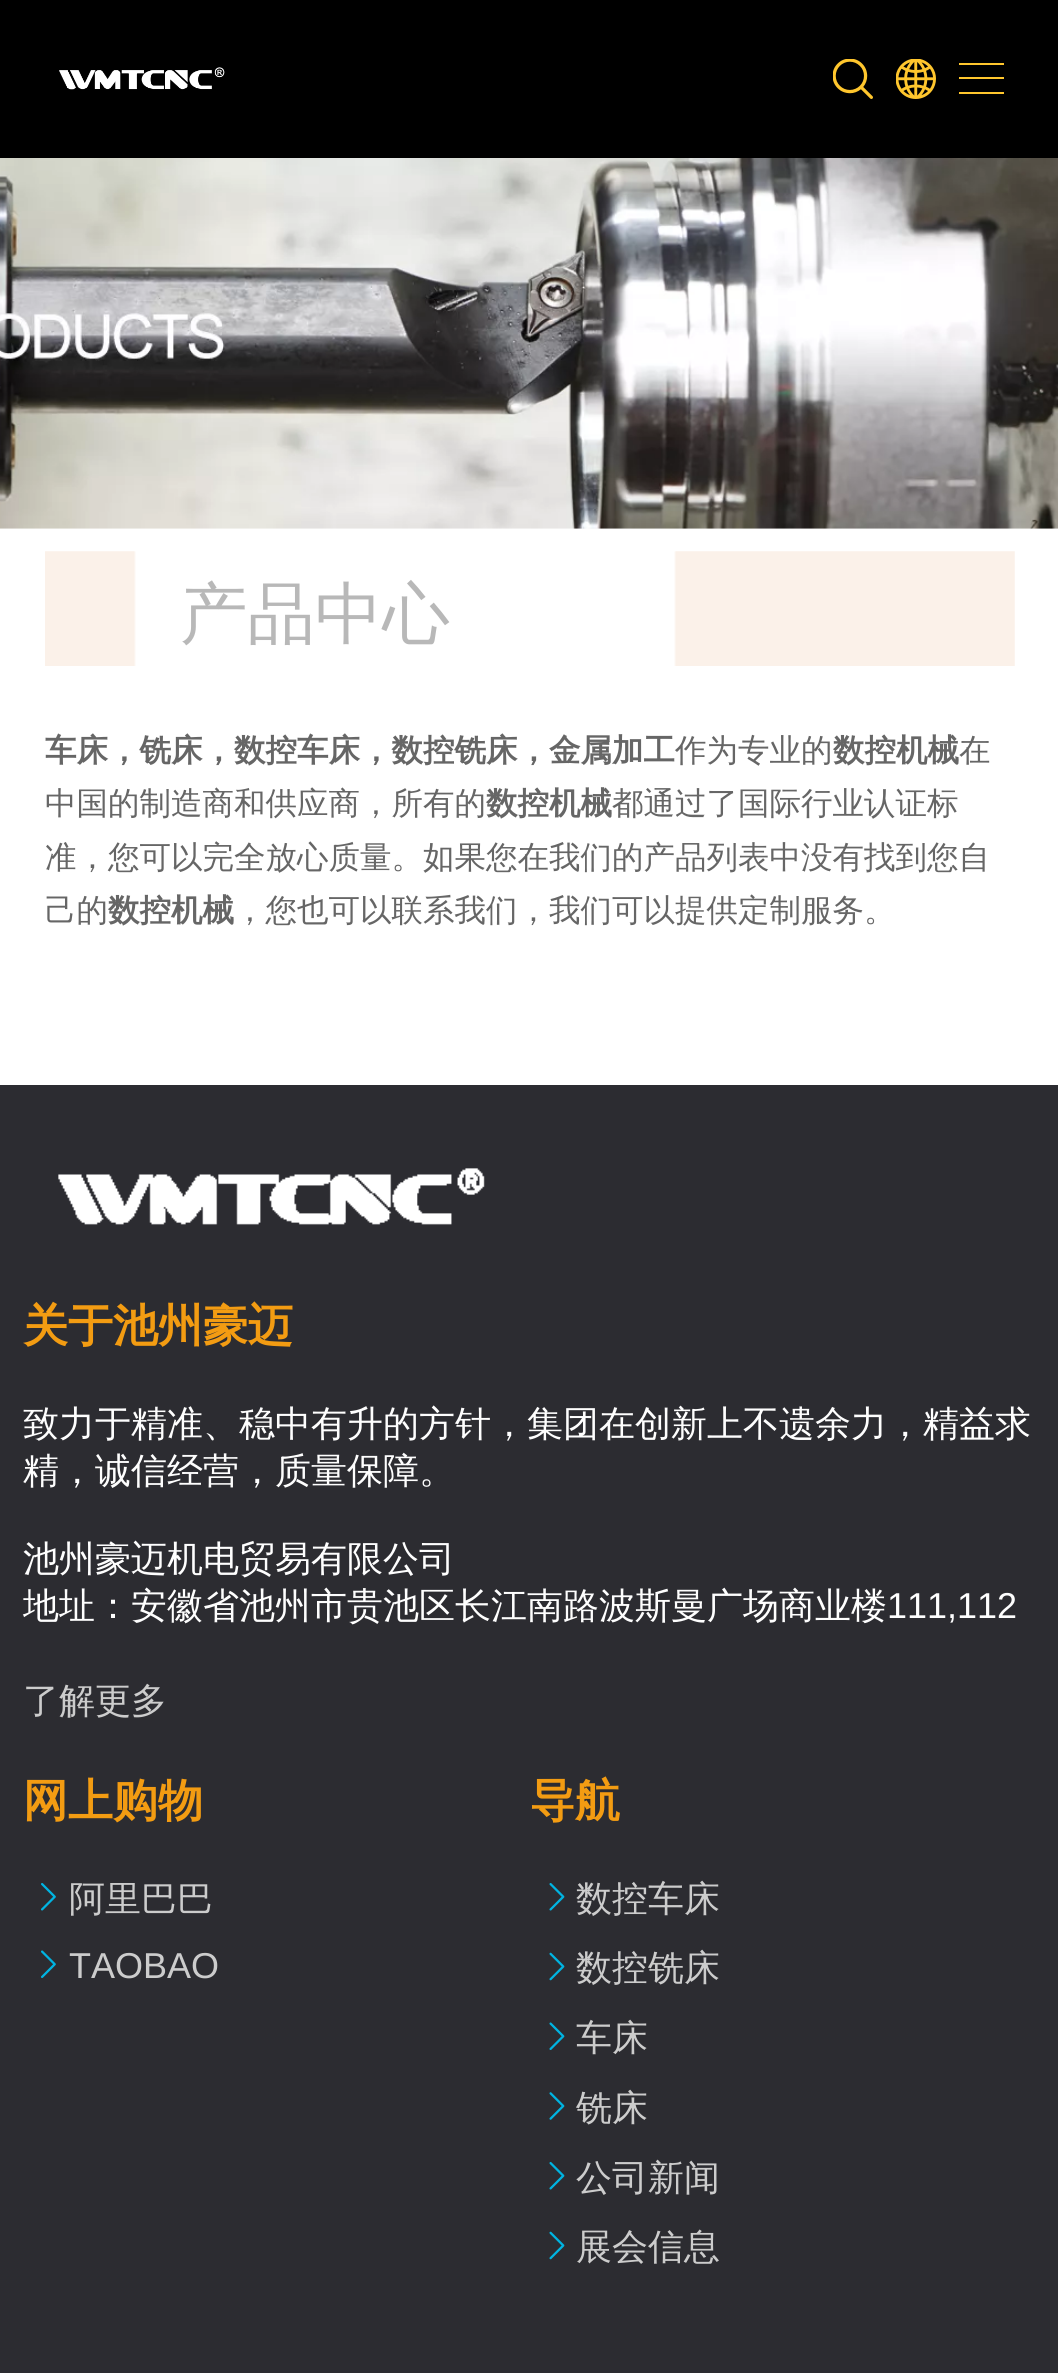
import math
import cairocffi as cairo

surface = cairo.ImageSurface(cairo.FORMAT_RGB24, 1058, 2373)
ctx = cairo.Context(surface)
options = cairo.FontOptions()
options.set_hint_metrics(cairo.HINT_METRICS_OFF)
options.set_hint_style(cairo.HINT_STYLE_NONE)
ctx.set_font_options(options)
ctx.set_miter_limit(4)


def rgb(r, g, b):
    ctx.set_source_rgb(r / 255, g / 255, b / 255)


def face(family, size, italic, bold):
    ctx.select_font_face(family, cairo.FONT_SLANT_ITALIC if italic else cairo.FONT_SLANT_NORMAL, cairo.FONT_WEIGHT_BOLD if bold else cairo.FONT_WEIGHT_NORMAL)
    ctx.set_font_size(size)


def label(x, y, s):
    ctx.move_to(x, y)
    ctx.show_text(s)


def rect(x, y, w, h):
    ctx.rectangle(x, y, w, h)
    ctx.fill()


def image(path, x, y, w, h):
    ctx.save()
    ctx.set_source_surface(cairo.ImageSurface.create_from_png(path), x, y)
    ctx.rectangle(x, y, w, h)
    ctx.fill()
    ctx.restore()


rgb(255, 255, 255)
ctx.paint()
rgb(0, 0, 0)
rect(0, 0, 1058, 158)
image('image0.png', 59, 67, 166, 23)
image('image1.png', 833, 59, 40, 40)
image('image2.png', 896, 59, 40, 40)
rgb(255, 198, 45)
rect(959, 63, 45, 2)
rect(959, 77, 45, 2)
rect(959, 92, 45, 2)
image('image3.png', 0, 158, 1058, 371)
image('image4.png', 45, 551, 970, 115)
face('WenQuanYi Zen Hei Medium', 67.5, 0, 0)
rgb(184, 184, 184)
label(180, 637, '产品中心')
face('WenQuanYi Zen Hei', 31.5, 0, 1)
rgb(102, 102, 102)
label(45, 761, '车床，铣床，数控车床，数控铣床，金属加工')
face('WenQuanYi Zen Hei Medium', 31.5, 0, 0)
label(675, 761, '作为专业的')
face('WenQuanYi Zen Hei', 31.5, 0, 1)
label(833, 761, '数控机械')
face('WenQuanYi Zen Hei Medium', 31.5, 0, 0)
label(959, 761, '在')
label(45, 814, '中国的制造商和供应商，所有的')
face('WenQuanYi Zen Hei', 31.5, 0, 1)
label(486, 814, '数控机械')
face('WenQuanYi Zen Hei Medium', 31.5, 0, 0)
label(612, 814, '都通过了国际行业认证标')
label(45, 868, '准，您可以完全放心质量。如果您在我们的产品列表中没有找到您自')
label(45, 921, '己的')
face('WenQuanYi Zen Hei', 31.5, 0, 1)
label(108, 921, '数控机械')
face('WenQuanYi Zen Hei Medium', 31.5, 0, 0)
label(234, 921, '，您也可以联系我们，我们可以提供定制服务。')
rgb(44, 44, 49)
rect(0, 1085, 1058, 1288)
image('image5.png', 58, 1168, 427, 57)
face('WenQuanYi Zen Hei', 45, 0, 1)
rgb(243, 156, 18)
label(23, 1341, '关于池州豪迈')
face('WenQuanYi Zen Hei Medium', 36, 0, 0)
rgb(254, 254, 254)
label(23, 1436, '致力于精准、稳中有升的方针，集团在创新上不遗余力，精益求')
label(23, 1483, '精，诚信经营，质量保障。')
label(23, 1571, '池州豪迈机电贸易有限公司')
label(23, 1618, '地址：安徽省池州市贵池区长江南路波斯曼广场商业楼')
face('Liberation Sans', 36, 0, 0)
label(887, 1618, '111,112')
face('WenQuanYi Zen Hei Medium', 36, 0, 0)
rgb(204, 204, 204)
label(23, 1713, '了解更多')
face('WenQuanYi Zen Hei', 45, 0, 1)
rgb(243, 156, 18)
label(23, 1816, '网上购物')
image('image6.png', 41, 1883, 15, 28)
face('WenQuanYi Zen Hei Medium', 36, 0, 0)
rgb(204, 204, 204)
label(69, 1911, '阿里巴巴')
image('image7.png', 41, 1950, 15, 28)
face('Liberation Sans', 36, 0, 0)
label(69, 1978, 'TAOBAO')
face('WenQuanYi Zen Hei', 45, 0, 1)
rgb(243, 156, 18)
label(530, 1816, '导航')
image('image8.png', 549, 1883, 16, 28)
face('WenQuanYi Zen Hei Medium', 36, 0, 0)
rgb(204, 204, 204)
label(576, 1911, '数控车床')
image('image9.png', 549, 1952, 16, 29)
label(576, 1980, '数控铣床')
image('image10.png', 549, 2022, 16, 28)
label(576, 2050, '车床')
image('image11.png', 549, 2092, 16, 28)
label(576, 2120, '铣床')
image('image8.png', 549, 2162, 16, 28)
label(576, 2190, '公司新闻')
image('image9.png', 549, 2231, 16, 29)
label(576, 2259, '展会信息')
surface.write_to_png('render.png')
